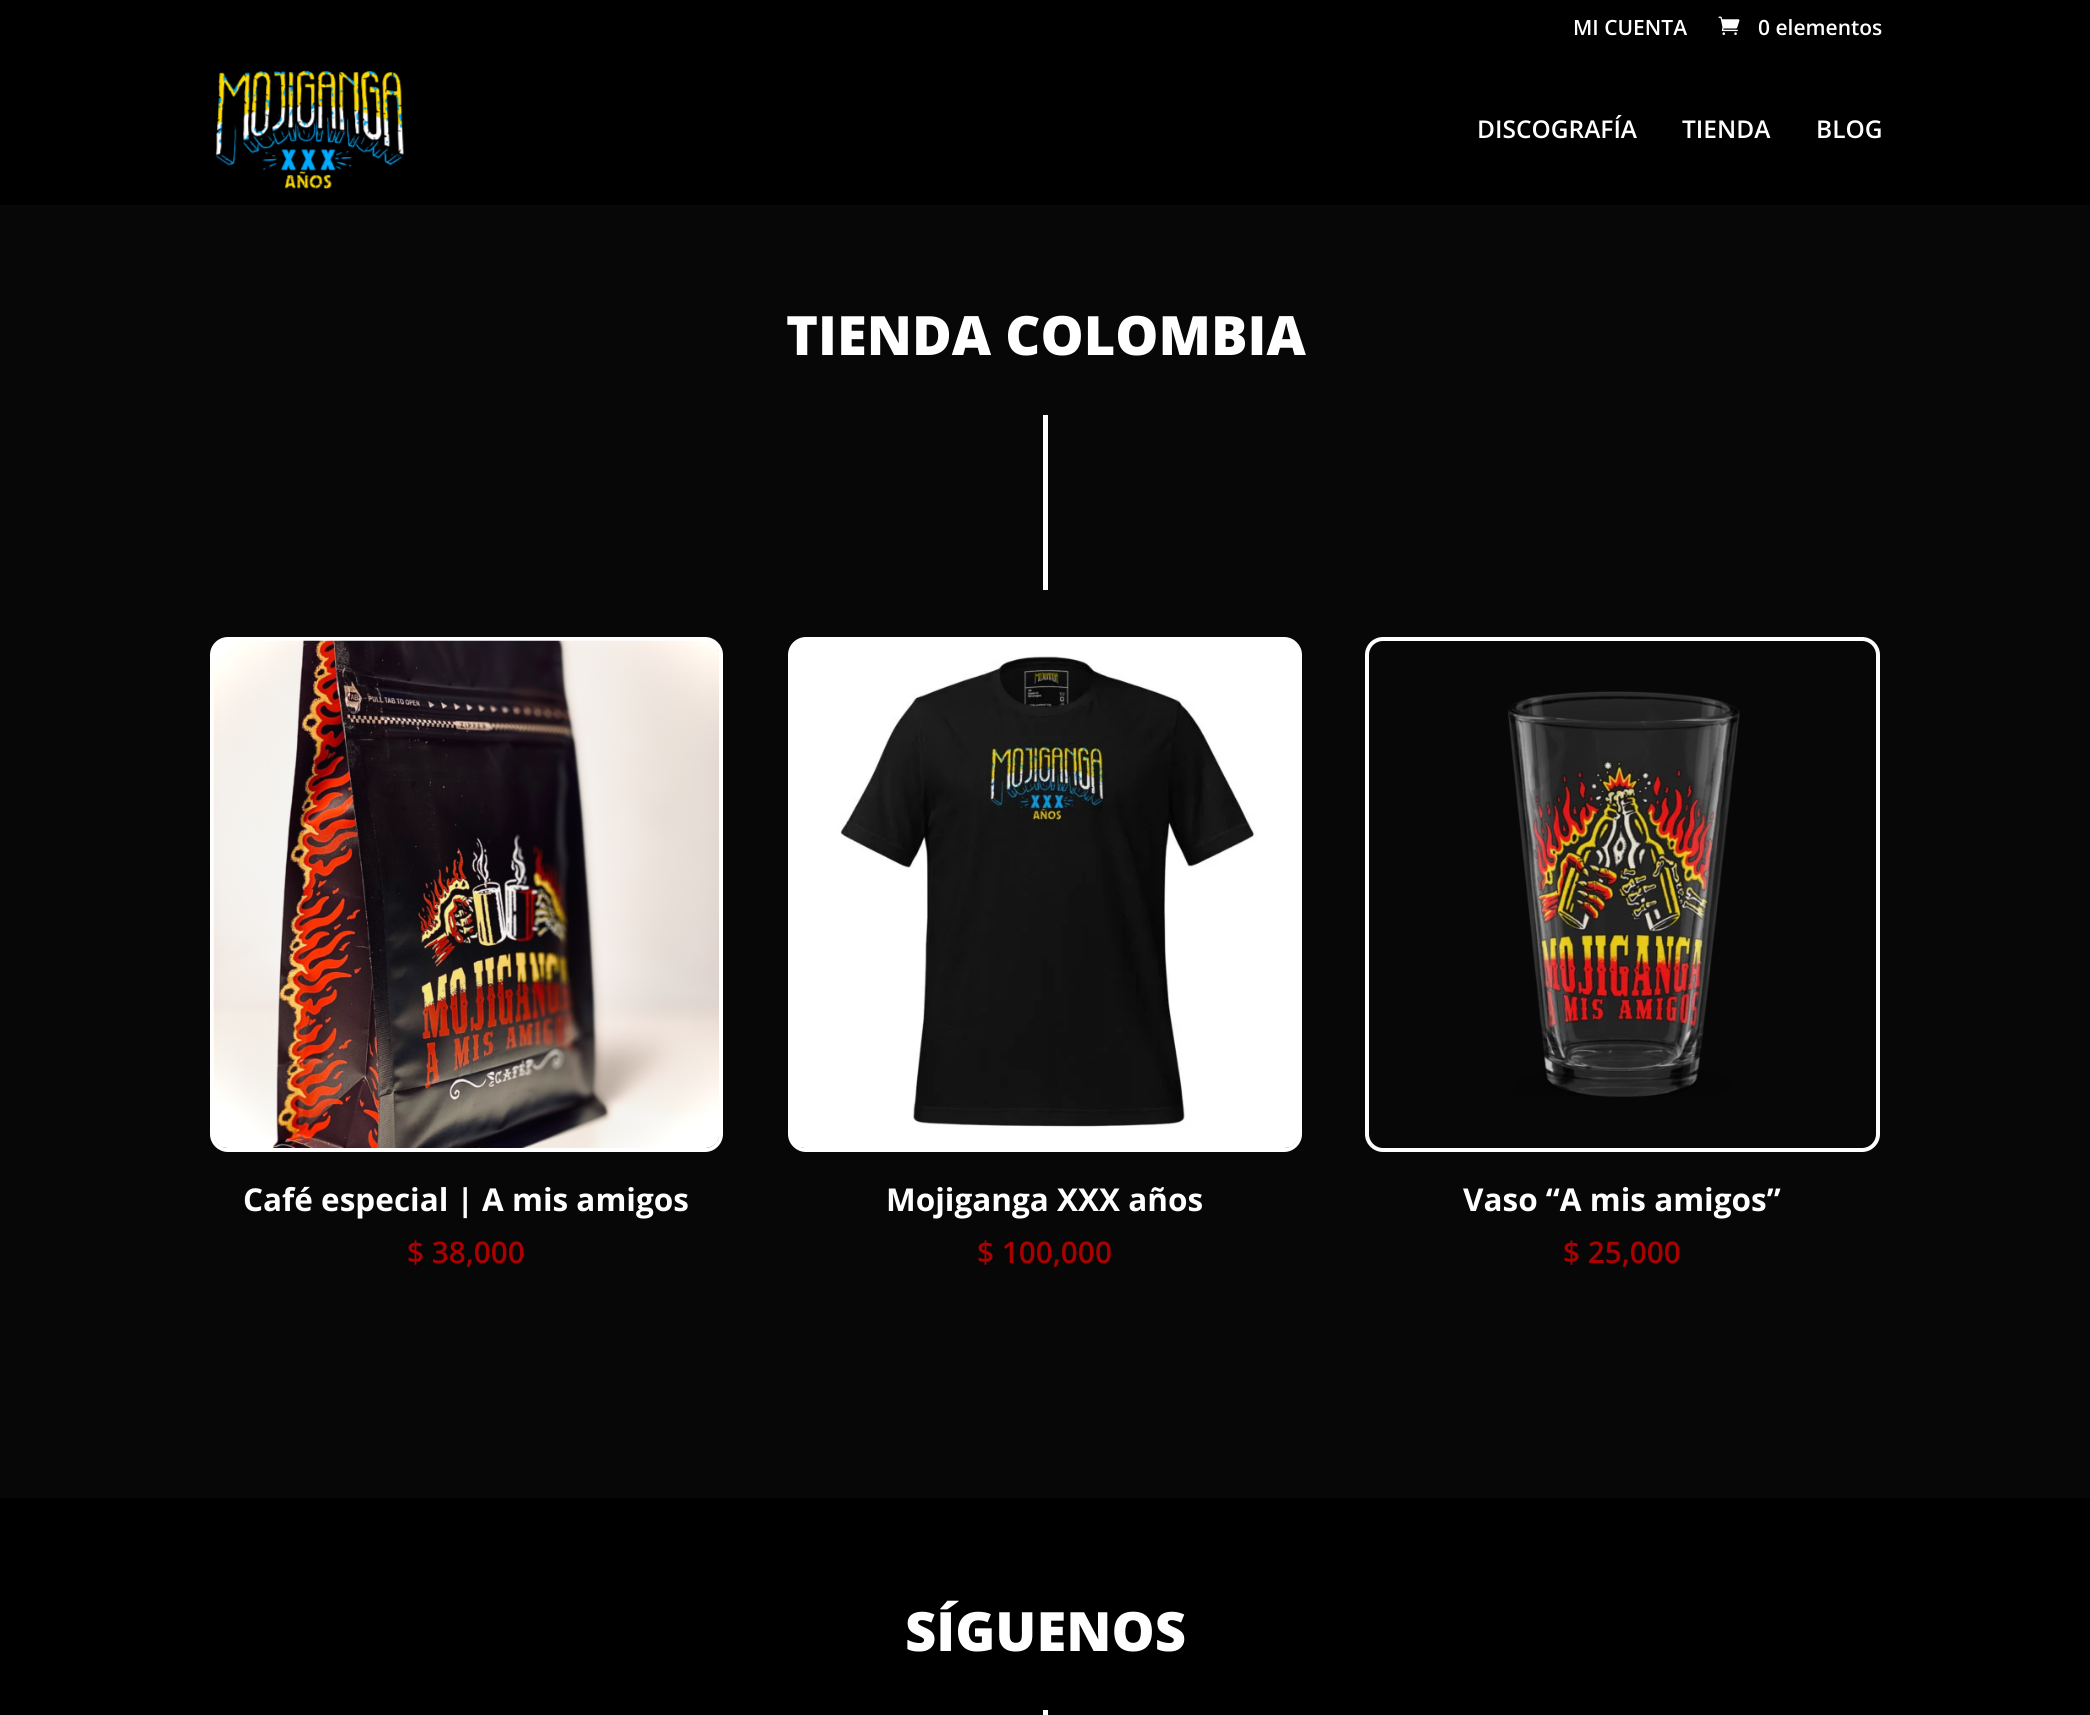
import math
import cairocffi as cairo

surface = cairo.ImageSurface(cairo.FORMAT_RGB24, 2090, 1715)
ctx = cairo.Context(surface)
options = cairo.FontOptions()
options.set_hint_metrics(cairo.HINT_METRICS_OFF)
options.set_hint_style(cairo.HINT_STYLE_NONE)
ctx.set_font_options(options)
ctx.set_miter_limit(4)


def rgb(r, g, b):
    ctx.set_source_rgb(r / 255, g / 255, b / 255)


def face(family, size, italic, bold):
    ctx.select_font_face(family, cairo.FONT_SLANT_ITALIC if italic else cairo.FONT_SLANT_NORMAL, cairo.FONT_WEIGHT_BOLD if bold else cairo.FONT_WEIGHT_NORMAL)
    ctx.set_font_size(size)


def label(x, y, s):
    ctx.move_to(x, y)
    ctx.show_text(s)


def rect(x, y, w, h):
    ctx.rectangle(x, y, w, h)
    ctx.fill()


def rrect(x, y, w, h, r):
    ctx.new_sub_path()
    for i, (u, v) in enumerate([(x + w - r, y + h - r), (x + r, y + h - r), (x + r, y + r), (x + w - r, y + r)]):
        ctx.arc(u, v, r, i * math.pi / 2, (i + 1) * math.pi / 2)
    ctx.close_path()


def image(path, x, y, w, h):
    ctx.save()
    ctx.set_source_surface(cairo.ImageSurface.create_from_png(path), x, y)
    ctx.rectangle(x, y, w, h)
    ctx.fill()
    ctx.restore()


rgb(0, 0, 0)
ctx.paint()
face('Open Sans SemiBold', 21, 0, 0)
rgb(255, 255, 255)
label(1573, 35, 'MI CUENTA')
image('image0.png', 1718, 16, 22, 19)
label(1758, 35, '0 elementos')
image('image1.png', 215, 70, 190, 119)
face('Open Sans SemiBold', 24.5, 0, 0)
label(1477, 138, 'DISCOGRAFÍA')
label(1682, 138, 'TIENDA')
label(1816, 138, 'BLOG')
rgb(7, 7, 7)
rect(0, 205, 2090, 1293)
face('Open Sans ExtraBold', 54.25, 0, 0)
rgb(255, 255, 255)
label(786, 355, 'TIENDA COLOMBIA')
rect(1043, 415, 5, 175)
rrect(212, 639, 509, 511, 16)
ctx.set_line_width(4)
ctx.stroke()
image('image2.png', 213, 640, 506, 508)
face('Open Sans', 31.5, 0, 1)
label(243, 1211, 'Café especial | A mis amigos')
face('Open Sans SemiBold', 29.75, 0, 0)
rgb(170, 0, 0)
label(407, 1263, '$ 38,000')
rrect(790, 639, 510, 511, 16)
rgb(255, 255, 255)
ctx.stroke()
image('image3.png', 792, 641, 506, 507)
face('Open Sans', 31.5, 0, 1)
label(886, 1211, 'Mojiganga XXX años')
face('Open Sans SemiBold', 29.75, 0, 0)
rgb(170, 0, 0)
label(977, 1263, '$ 100,000')
rrect(1367, 639, 511, 511, 16)
rgb(255, 255, 255)
ctx.stroke()
image('image4.png', 1508, 691, 232, 406)
face('Open Sans', 31.5, 0, 1)
label(1463, 1211, 'Vaso “A mis amigos”')
face('Open Sans SemiBold', 29.75, 0, 0)
rgb(170, 0, 0)
label(1563, 1263, '$ 25,000')
face('Open Sans ExtraBold', 54.25, 0, 0)
rgb(255, 255, 255)
label(905, 1651, 'SÍGUENOS')
rect(1043, 1710, 5, 5)
surface.write_to_png('render.png')
